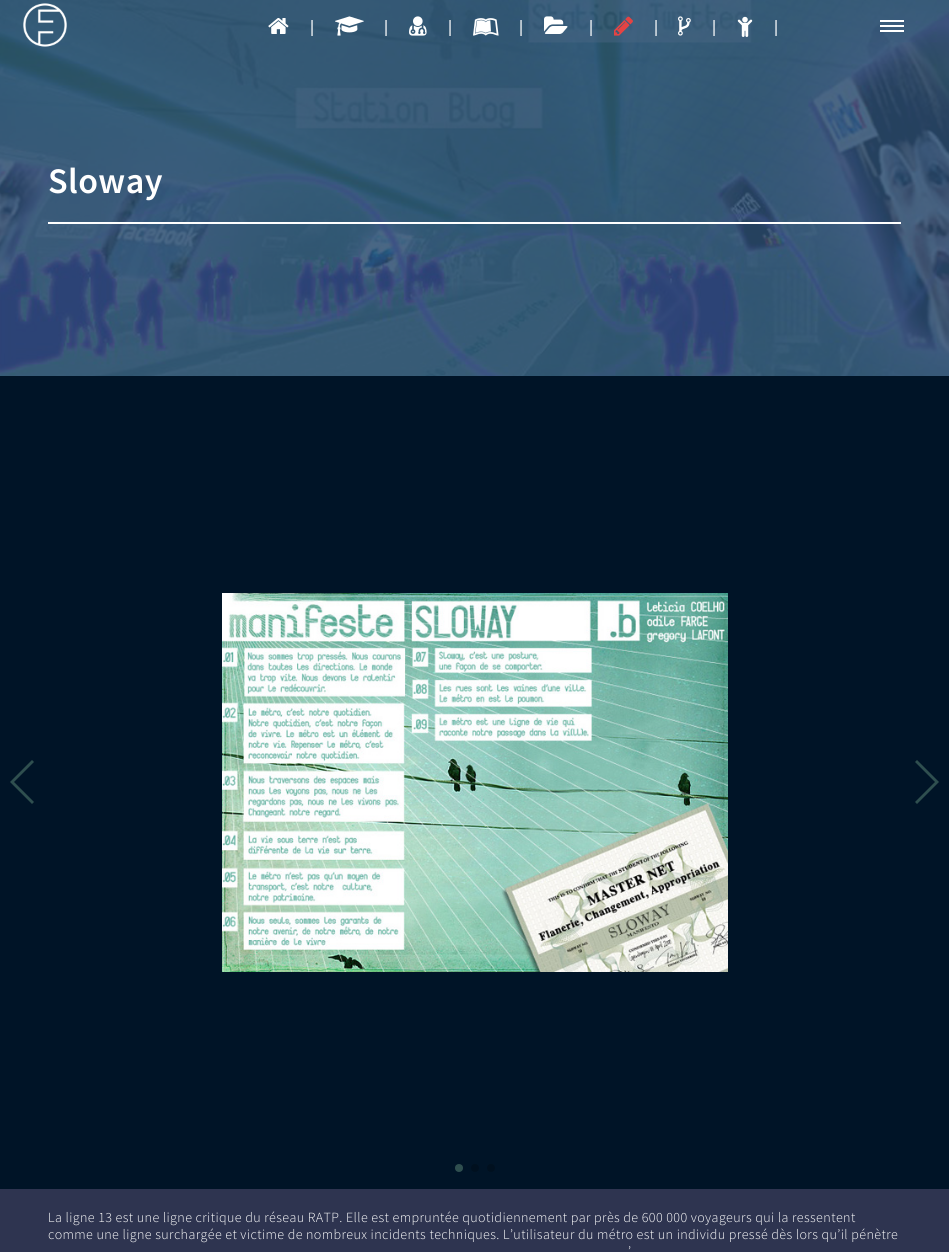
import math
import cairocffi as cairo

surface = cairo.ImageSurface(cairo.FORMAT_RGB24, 949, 1252)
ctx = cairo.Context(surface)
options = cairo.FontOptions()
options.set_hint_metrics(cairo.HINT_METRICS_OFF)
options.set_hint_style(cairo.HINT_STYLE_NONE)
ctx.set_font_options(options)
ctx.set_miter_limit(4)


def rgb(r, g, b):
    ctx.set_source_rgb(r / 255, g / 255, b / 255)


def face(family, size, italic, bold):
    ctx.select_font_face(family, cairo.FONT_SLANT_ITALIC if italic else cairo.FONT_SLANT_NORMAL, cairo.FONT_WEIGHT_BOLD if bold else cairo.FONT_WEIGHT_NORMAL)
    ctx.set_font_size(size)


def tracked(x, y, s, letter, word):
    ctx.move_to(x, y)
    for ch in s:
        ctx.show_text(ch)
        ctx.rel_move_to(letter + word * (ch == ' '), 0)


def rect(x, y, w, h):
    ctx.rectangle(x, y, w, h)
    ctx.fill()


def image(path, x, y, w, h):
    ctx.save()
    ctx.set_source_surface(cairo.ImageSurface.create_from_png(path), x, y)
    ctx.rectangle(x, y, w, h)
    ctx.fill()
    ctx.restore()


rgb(46, 52, 80)
ctx.paint()
image('image9.png', 0, 0, 949, 376)
image('image0.png', 23, 3, 44, 44)
image('image1.png', 268, 18, 21, 16)
face('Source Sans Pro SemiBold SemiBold', 16, 0, 0)
rgb(255, 255, 255)
tracked(310, 32, '|', 4, 0)
image('image2.png', 335, 16, 29, 20)
tracked(384, 32, '|', 4, 0)
image('image3.png', 409, 16, 18, 20)
tracked(448, 32, '|', 4, 0)
image('image4.png', 473, 18, 26, 18)
tracked(519, 32, '|', 4, 0)
image('image5.png', 544, 16, 24, 18)
tracked(589, 32, '|', 4, 0)
image('image6.png', 614, 16, 19, 20)
tracked(654, 32, '|', 4, 0)
image('image7.png', 678, 16, 13, 20)
tracked(712, 32, '|', 4, 0)
image('image8.png', 737, 16, 16, 21)
tracked(774, 32, '|', 4, 0)
rect(880, 20, 24, 2)
rect(880, 30, 24, 2)
rect(880, 25, 24, 2)
face('Source Sans Pro SemiBold SemiBold', 36, 0, 0)
tracked(48, 193, 'Sloway', 0.4, 0)
rect(48, 222, 853, 2)
rgb(0, 20, 39)
rect(0, 376, 949, 813)
image('image10.png', 222, 593, 506, 379)
rgb(47, 79, 79)
ctx.new_path()
ctx.move_to(10, 782)
ctx.line_to(32, 760)
ctx.line_to(34, 762)
ctx.line_to(14, 782)
ctx.line_to(34, 802)
ctx.line_to(32, 804)
ctx.close_path()
ctx.fill()
ctx.new_path()
ctx.move_to(939, 782)
ctx.line_to(917, 804)
ctx.line_to(915, 802)
ctx.line_to(935, 782)
ctx.line_to(915, 762)
ctx.line_to(917, 760)
ctx.close_path()
ctx.fill()
ctx.arc(459, 1168, 4, 0, 2 * math.pi)
ctx.fill()
rgb(0, 16, 31)
ctx.arc(475, 1168, 4, 0, 2 * math.pi)
ctx.fill()
ctx.arc(491, 1168, 4, 0, 2 * math.pi)
ctx.fill()
face('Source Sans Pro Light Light', 14, 0, 0)
rgb(255, 255, 255)
tracked(48, 1222, 'La ligne 13 est une ligne critique du réseau RATP. Elle est empruntée quotidiennement par près de 600 000 voyageurs qui la ressentent', 0.4, 0)
tracked(48, 1239, 'comme une ligne surchargée et victime de nombreux incidents techniques. L’utilisateur du métro est un individu pressé dès lors qu’il pénètre', 0.4, 0)
tracked(628, 1256, '’', 0.4, 0)
surface.write_to_png('render.png')
